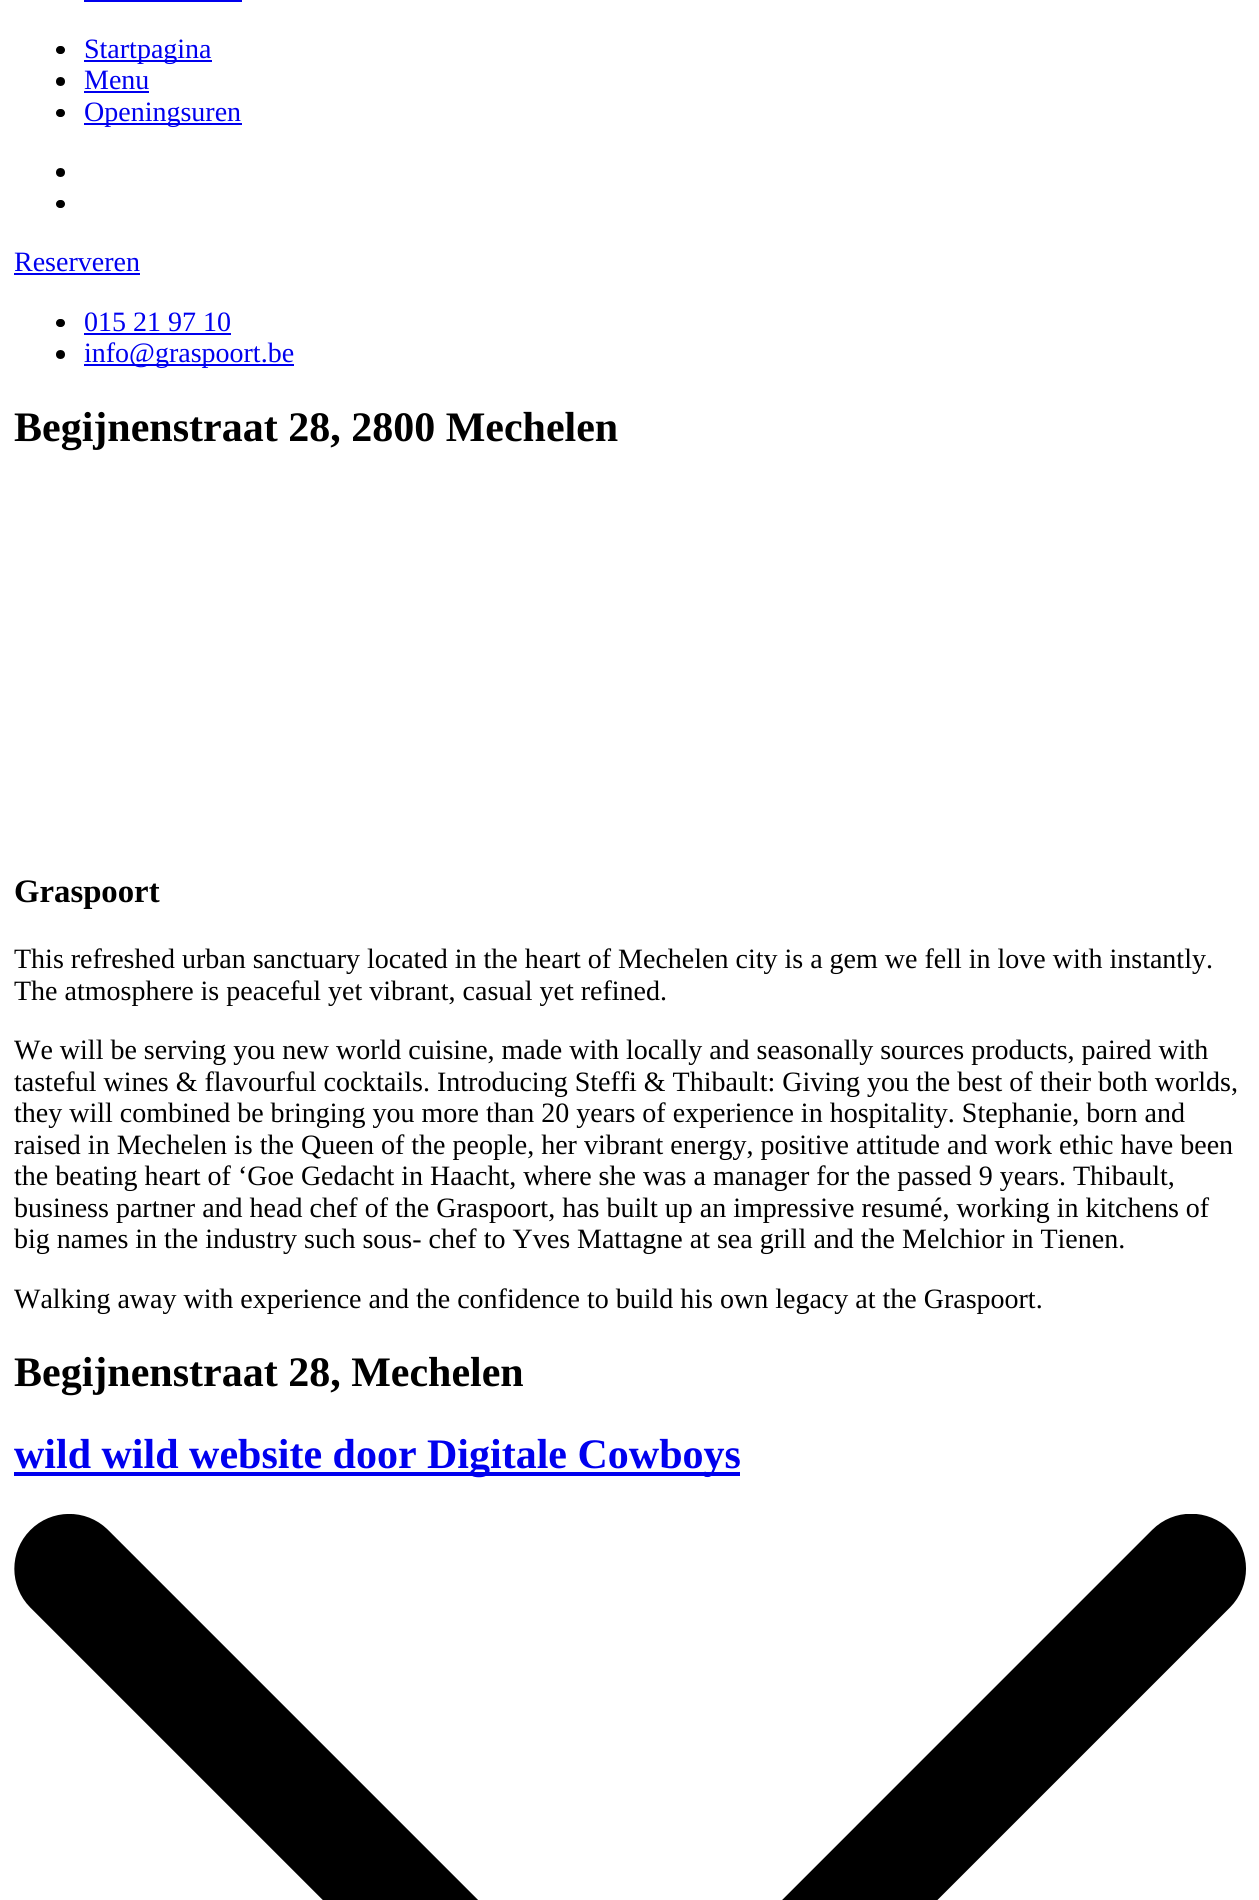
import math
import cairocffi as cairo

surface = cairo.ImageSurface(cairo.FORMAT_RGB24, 1259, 1900)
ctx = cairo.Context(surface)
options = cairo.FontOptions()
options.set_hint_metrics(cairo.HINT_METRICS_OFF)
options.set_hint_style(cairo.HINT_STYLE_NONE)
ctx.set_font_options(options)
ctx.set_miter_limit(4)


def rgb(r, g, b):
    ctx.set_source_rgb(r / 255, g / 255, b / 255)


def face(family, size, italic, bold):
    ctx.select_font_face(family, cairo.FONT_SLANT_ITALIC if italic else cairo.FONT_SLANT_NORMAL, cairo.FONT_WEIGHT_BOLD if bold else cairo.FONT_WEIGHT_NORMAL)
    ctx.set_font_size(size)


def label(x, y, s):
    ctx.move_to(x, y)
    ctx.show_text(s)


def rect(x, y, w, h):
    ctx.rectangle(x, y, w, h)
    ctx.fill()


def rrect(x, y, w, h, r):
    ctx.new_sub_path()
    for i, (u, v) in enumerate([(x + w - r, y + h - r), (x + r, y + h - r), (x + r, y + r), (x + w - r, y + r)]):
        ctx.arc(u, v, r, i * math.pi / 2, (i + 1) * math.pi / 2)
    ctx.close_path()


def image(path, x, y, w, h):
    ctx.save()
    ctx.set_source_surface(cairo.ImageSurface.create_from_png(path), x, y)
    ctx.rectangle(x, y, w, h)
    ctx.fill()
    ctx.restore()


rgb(255, 255, 255)
ctx.paint()
rgb(0, 0, 238)
rect(84, 0, 158, 2)
rgb(0, 0, 0)
rrect(56, 46, 9, 8, 4)
ctx.fill()
rgb(0, 0, 238)
rect(84, 60, 128, 2)
face('Liberation Serif', 28, 0, 0)
label(84, 58, 'Startpagina')
rgb(0, 0, 0)
ctx.new_path()
ctx.arc(60.5, 81.5, 4.5, 0, 2 * math.pi)
ctx.fill()
rgb(0, 0, 238)
label(84, 89, 'Menu')
rect(84, 91, 65, 2)
rgb(0, 0, 0)
rrect(56, 109, 9, 8, 4)
ctx.fill()
rgb(0, 0, 238)
rect(84, 123, 158, 2)
label(84, 121, 'Openingsuren')
rgb(0, 0, 0)
ctx.new_path()
ctx.arc(60.5, 172.5, 4.5, 0, 2 * math.pi)
ctx.fill()
rrect(56, 200, 9, 8, 4)
ctx.fill()
rgb(0, 0, 238)
label(14, 271, 'Reserveren')
rect(14, 273, 126, 2)
rgb(0, 0, 0)
rrect(56, 319, 9, 8, 4)
ctx.fill()
rgb(0, 0, 238)
label(84, 331, '015 21 97 10')
rect(84, 333, 147, 2)
rgb(0, 0, 0)
ctx.new_path()
ctx.arc(60.5, 354.5, 4.5, 0, 2 * math.pi)
ctx.fill()
rgb(0, 0, 238)
rect(84, 364, 210, 2)
label(84, 362, 'info@graspoort.be')
face('Liberation Serif', 42, 0, 1)
rgb(0, 0, 0)
label(14, 441, 'Begijnenstraat 28, 2800 Mechelen')
face('Liberation Serif', 32.75, 0, 1)
label(14, 902, 'Graspoort')
face('Liberation Serif', 28, 0, 0)
label(14, 968, 'This refreshed urban sanctuary located in the heart of Mechelen city is a gem we fell in love with instantly.')
label(14, 1000, 'The atmosphere is peaceful yet vibrant, casual yet refined.')
label(14, 1059, 'We will be serving you new world cuisine, made with locally and seasonally sources products, paired with')
label(14, 1091, 'tasteful wines & flavourful cocktails. Introducing Steffi & Thibault: Giving you the best of their both worlds,')
label(14, 1122, 'they will combined be bringing you more than 20 years of experience in hospitality. Stephanie, born and')
label(14, 1154, 'raised in Mechelen is the Queen of the people, her vibrant energy, positive attitude and work ethic have been')
label(14, 1185, 'the beating heart of ‘Goe Gedacht in Haacht, where she was a manager for the passed 9 years. Thibault,')
label(14, 1217, 'business partner and head chef of the Graspoort, has built up an impressive resumé, working in kitchens of')
label(14, 1248, 'big names in the industry such sous- chef to Yves Mattagne at sea grill and the Melchior in Tienen.')
label(14, 1308, 'Walking away with experience and the confidence to build his own legacy at the Graspoort.')
face('Liberation Serif', 42, 0, 1)
label(14, 1386, 'Begijnenstraat 28, Mechelen')
rgb(0, 0, 238)
rect(14, 1472, 726, 4)
label(14, 1468, 'wild wild website door Digitale Cowboys')
image('image0.png', 14, 1514, 1232, 386)
surface.write_to_png('render.png')
